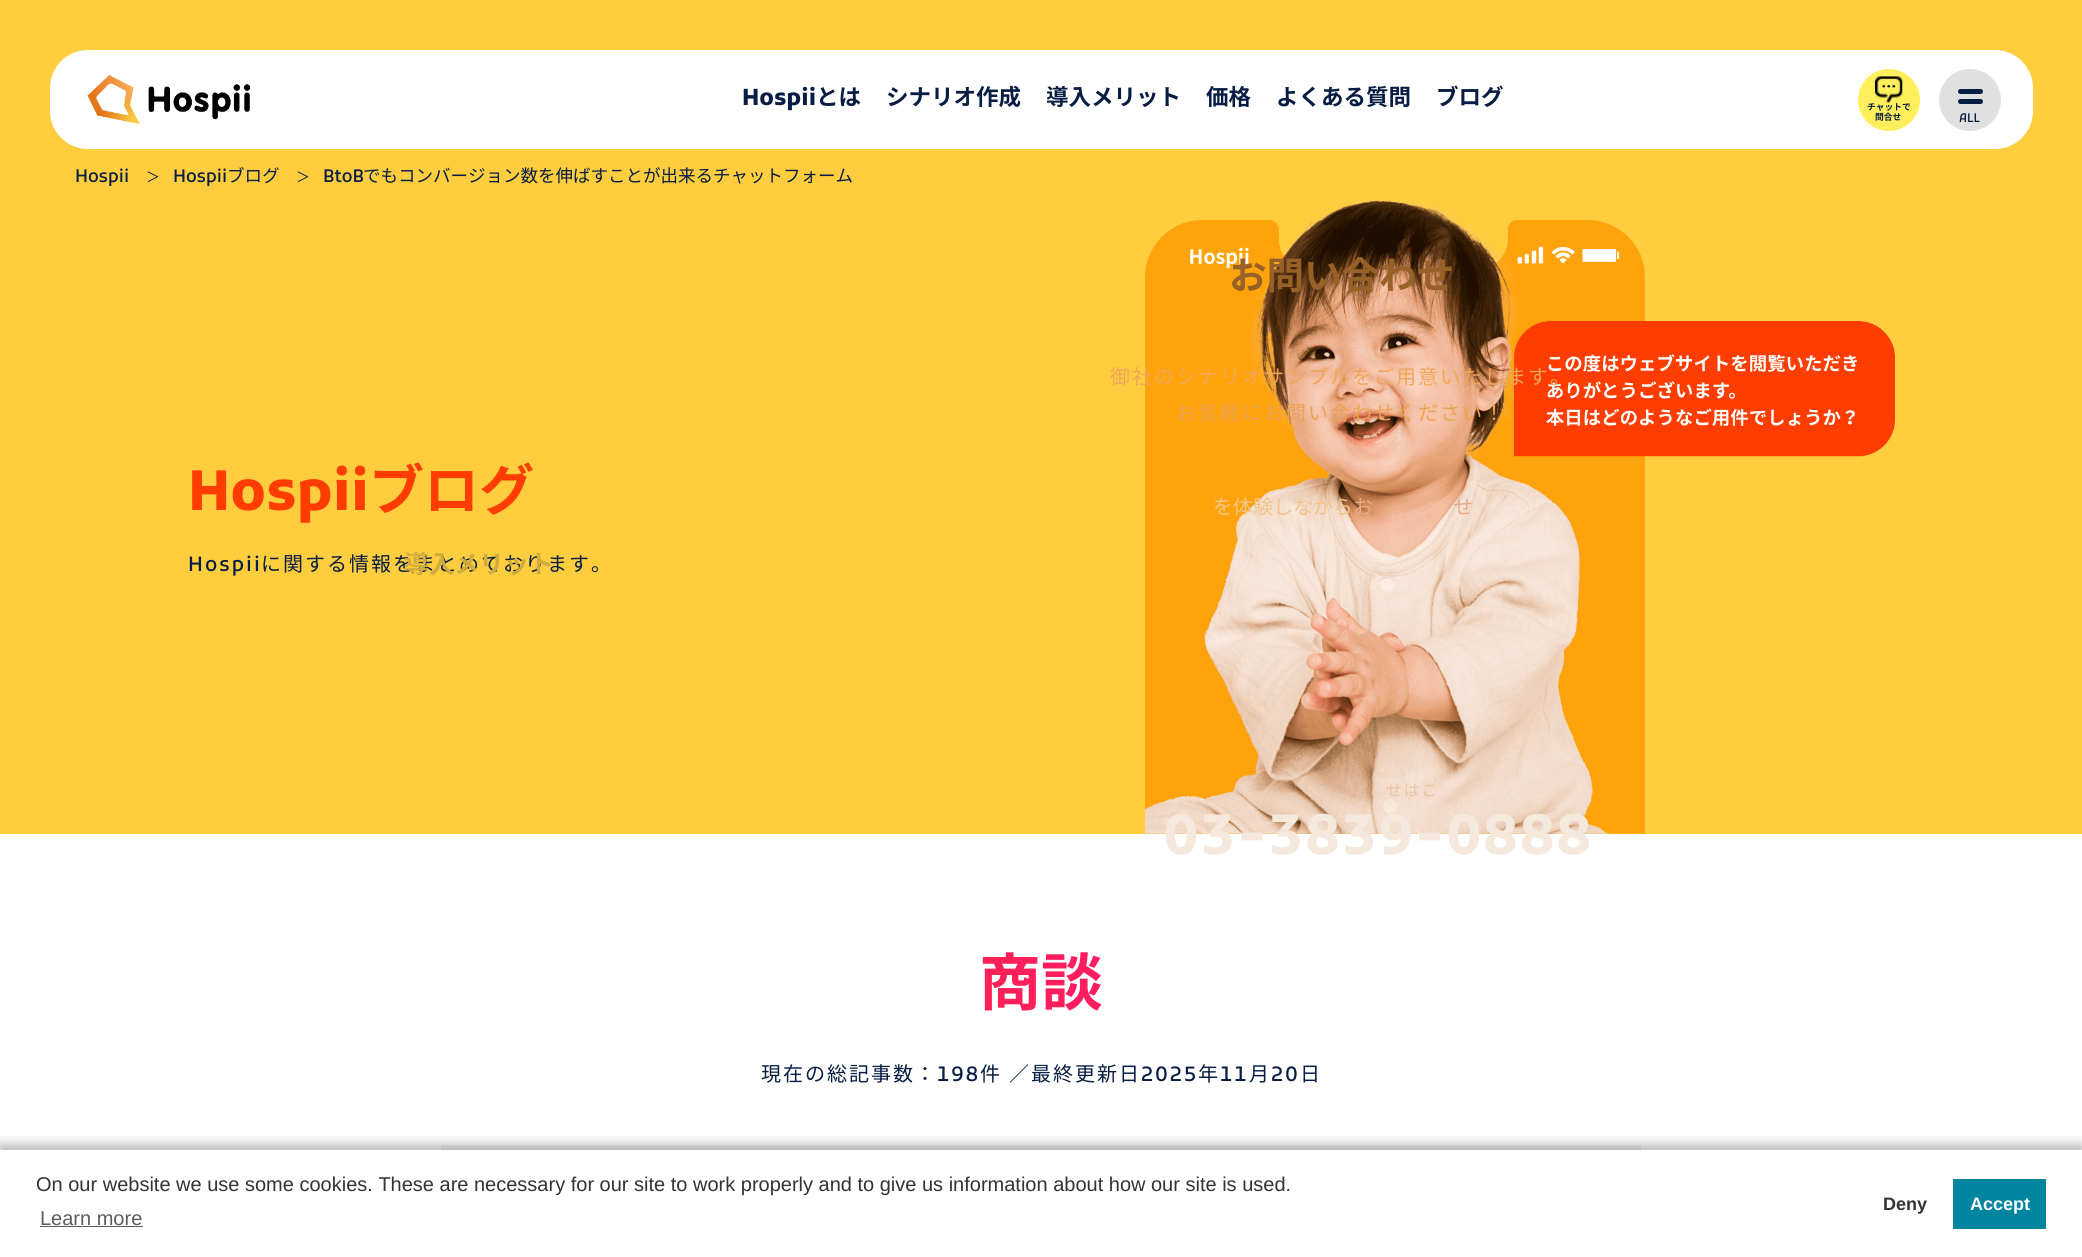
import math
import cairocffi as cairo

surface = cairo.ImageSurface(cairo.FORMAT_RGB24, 2082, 1257)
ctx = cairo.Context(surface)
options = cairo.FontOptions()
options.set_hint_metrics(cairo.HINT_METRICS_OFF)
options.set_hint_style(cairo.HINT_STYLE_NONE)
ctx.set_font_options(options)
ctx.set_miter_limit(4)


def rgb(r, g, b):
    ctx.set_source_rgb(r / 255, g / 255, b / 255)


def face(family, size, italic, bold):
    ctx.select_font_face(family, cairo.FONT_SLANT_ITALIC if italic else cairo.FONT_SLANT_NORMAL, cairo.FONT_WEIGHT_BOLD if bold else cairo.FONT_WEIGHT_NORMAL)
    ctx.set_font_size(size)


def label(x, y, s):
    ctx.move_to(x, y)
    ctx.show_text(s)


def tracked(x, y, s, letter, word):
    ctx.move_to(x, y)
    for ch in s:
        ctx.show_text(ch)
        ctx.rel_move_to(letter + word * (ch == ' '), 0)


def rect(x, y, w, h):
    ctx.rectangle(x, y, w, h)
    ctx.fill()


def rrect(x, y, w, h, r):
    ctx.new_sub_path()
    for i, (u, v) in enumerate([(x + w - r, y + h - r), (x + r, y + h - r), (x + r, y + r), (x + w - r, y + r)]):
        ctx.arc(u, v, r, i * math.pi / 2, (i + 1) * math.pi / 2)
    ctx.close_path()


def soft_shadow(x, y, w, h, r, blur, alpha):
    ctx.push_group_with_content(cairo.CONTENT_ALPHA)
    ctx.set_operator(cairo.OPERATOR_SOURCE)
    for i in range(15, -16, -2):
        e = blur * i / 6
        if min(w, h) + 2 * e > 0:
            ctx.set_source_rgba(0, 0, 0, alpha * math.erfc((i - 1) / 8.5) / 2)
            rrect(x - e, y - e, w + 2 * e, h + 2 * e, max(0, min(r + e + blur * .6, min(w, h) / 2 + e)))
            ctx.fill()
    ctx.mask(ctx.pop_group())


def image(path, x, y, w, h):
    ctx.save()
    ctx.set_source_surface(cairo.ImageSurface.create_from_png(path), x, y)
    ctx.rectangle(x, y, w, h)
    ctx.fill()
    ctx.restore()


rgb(255, 205, 61)
ctx.paint()
rgb(255, 255, 255)
rrect(50, 50, 1983, 99, 38)
ctx.fill()
image('image0.png', 87, 75, 163, 49)
face('Kufam', 22.5, 0, 1)
rgb(7, 29, 68)
label(742, 105, 'Hospii')
face('Noto Sans JP', 22.5, 0, 1)
label(816, 105, 'とは')
label(886, 105, 'シナリオ作成')
label(1046, 105, '導入メリット')
label(1206, 105, '価格')
label(1276, 105, 'よくある質問')
label(1436, 105, 'ブログ')
rgb(255, 239, 92)
ctx.new_path()
ctx.arc(1889, 100, 31, 0, 2 * math.pi)
ctx.fill()
image('image1.png', 1875, 76, 28, 27)
face('Noto Sans JP', 8.75, 0, 1)
rgb(7, 29, 68)
label(1867, 110, 'チャットで')
label(1875, 120, '問合せ')
rgb(224, 224, 224)
ctx.new_path()
ctx.arc(1970, 100, 31, 0, 2 * math.pi)
ctx.fill()
rgb(7, 29, 68)
rrect(1958, 89, 25, 5, 2.5)
ctx.fill()
rrect(1958, 99, 25, 5, 2.5)
ctx.fill()
face('Kufam Medium', 12, 0, 0)
label(1959, 122, 'ALL')
face('Noto Sans JP', 20, 0, 0)
tracked(261, 571, 'に関する情報をまとめております。', 2, 0)
face('Noto Sans JP', 25, 0, 1)
rgb(208, 171, 62)
label(404, 573, '導入メリット')
image('image3.png', 1145, 220, 500, 614)
image('image2.png', 1145, 200, 750, 634)
face('Noto Sans JP', 37.5, 0, 1)
rgb(151, 97, 39)
label(1229, 289, 'お問い合わせ')
face('Noto Sans JP', 20, 0, 0)
rgb(241, 166, 87)
tracked(1110, 384, '御社のシナリオサンプルをご用意いたします。', 2, 0)
rgb(236, 163, 81)
tracked(1176, 420, 'お気軽にお問い合わせください！', 2, 0)
rgb(243, 196, 136)
label(1213, 514, 'を体験しながら')
rgb(229, 173, 138)
label(1353, 514, 'お')
label(1453, 514, 'せ')
face('Noto Sans JP', 16, 0, 0)
rgb(234, 197, 161)
tracked(1386, 796, 'せはこ', 1.5, 0)
rgb(255, 255, 255)
rect(0, 834, 2082, 423)
face('Kufam', 55, 0, 1)
rgb(245, 232, 220)
tracked(1164, 854, '03-3839-0888', 2.75, 0)
face('Kufam Medium', 17.5, 0, 0)
rgb(7, 29, 68)
label(75, 182, 'Hospii')
face('Noto Sans JP', 14, 0, 0)
label(146, 182, '＞')
face('Kufam Medium', 17.5, 0, 0)
label(173, 182, 'Hospii')
face('Noto Sans JP', 17.5, 0, 0)
label(227, 182, 'ブログ')
face('Noto Sans JP', 14, 0, 0)
label(296, 182, '＞')
face('Kufam Medium', 17.5, 0, 0)
label(323, 182, 'BtoB')
face('Noto Sans JP', 17.5, 0, 0)
label(363, 182, 'でもコンバージョン数を伸ばすことが出来るチャットフォーム')
face('Kufam', 55, 0, 1)
rgb(255, 61, 0)
label(188, 510, 'Hospii')
face('Noto Sans JP', 55, 0, 1)
label(369, 510, 'ブログ')
face('Kufam Medium', 20, 0, 0)
rgb(7, 29, 68)
tracked(188, 571, 'Hospii', 2, 0)
face('Noto Sans JP', 62, 0, 1)
gradient = cairo.LinearGradient(0.1, 990, 2082, 990)
gradient.add_color_stop_rgba(0, 1, 0.239, 0, 1)
gradient.add_color_stop_rgba(1, 1, 0, 0.722, 1)
ctx.set_source(gradient)
label(979, 1005, '商談')
face('Noto Sans JP', 20, 0, 0)
rgb(7, 29, 68)
tracked(761, 1081, '現在の総記事数：', 2, 0)
face('Kufam Medium', 20, 0, 0)
tracked(937, 1081, '198', 2, 0)
face('Noto Sans JP', 20, 0, 0)
tracked(980, 1081, '件', 2, 0)
tracked(1009, 1081, '／最終更新日', 2, 0)
face('Kufam Medium', 20, 0, 0)
tracked(1141, 1081, '2025', 2, 0)
face('Noto Sans JP', 20, 0, 0)
tracked(1198, 1081, '年', 2, 0)
face('Kufam Medium', 20, 0, 0)
tracked(1220, 1081, '11', 2, 0)
face('Noto Sans JP', 20, 0, 0)
tracked(1249, 1081, '月', 2, 0)
face('Kufam Medium', 20, 0, 0)
tracked(1271, 1081, '20', 2, 0)
face('Noto Sans JP', 20, 0, 0)
tracked(1300, 1081, '日', 2, 0)
rgb(243, 243, 243)
rect(441, 1145, 1200, 5)
ctx.save()
ctx.rectangle(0, 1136, 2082, 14)
ctx.clip()
rgb(0, 0, 0)
soft_shadow(0, 1145, 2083, 108, 0, 6, 0.3)
ctx.restore()
face('Liberation Sans', 20, 0, 0)
rgb(51, 51, 51)
label(36, 1191, 'On our website we use some cookies. These are necessary for our site to work properly and to give us information about how our site is used.')
rgb(92, 92, 92)
label(40, 1225, 'Learn more')
rect(40, 1226, 103, 1)
face('Liberation Sans', 18, 0, 1)
rgb(51, 51, 51)
label(1883, 1210, 'Deny')
rgb(0, 133, 161)
rect(1953, 1179, 93, 50)
rgb(255, 255, 255)
label(1970, 1210, 'Accept')
surface.write_to_png('render.png')
